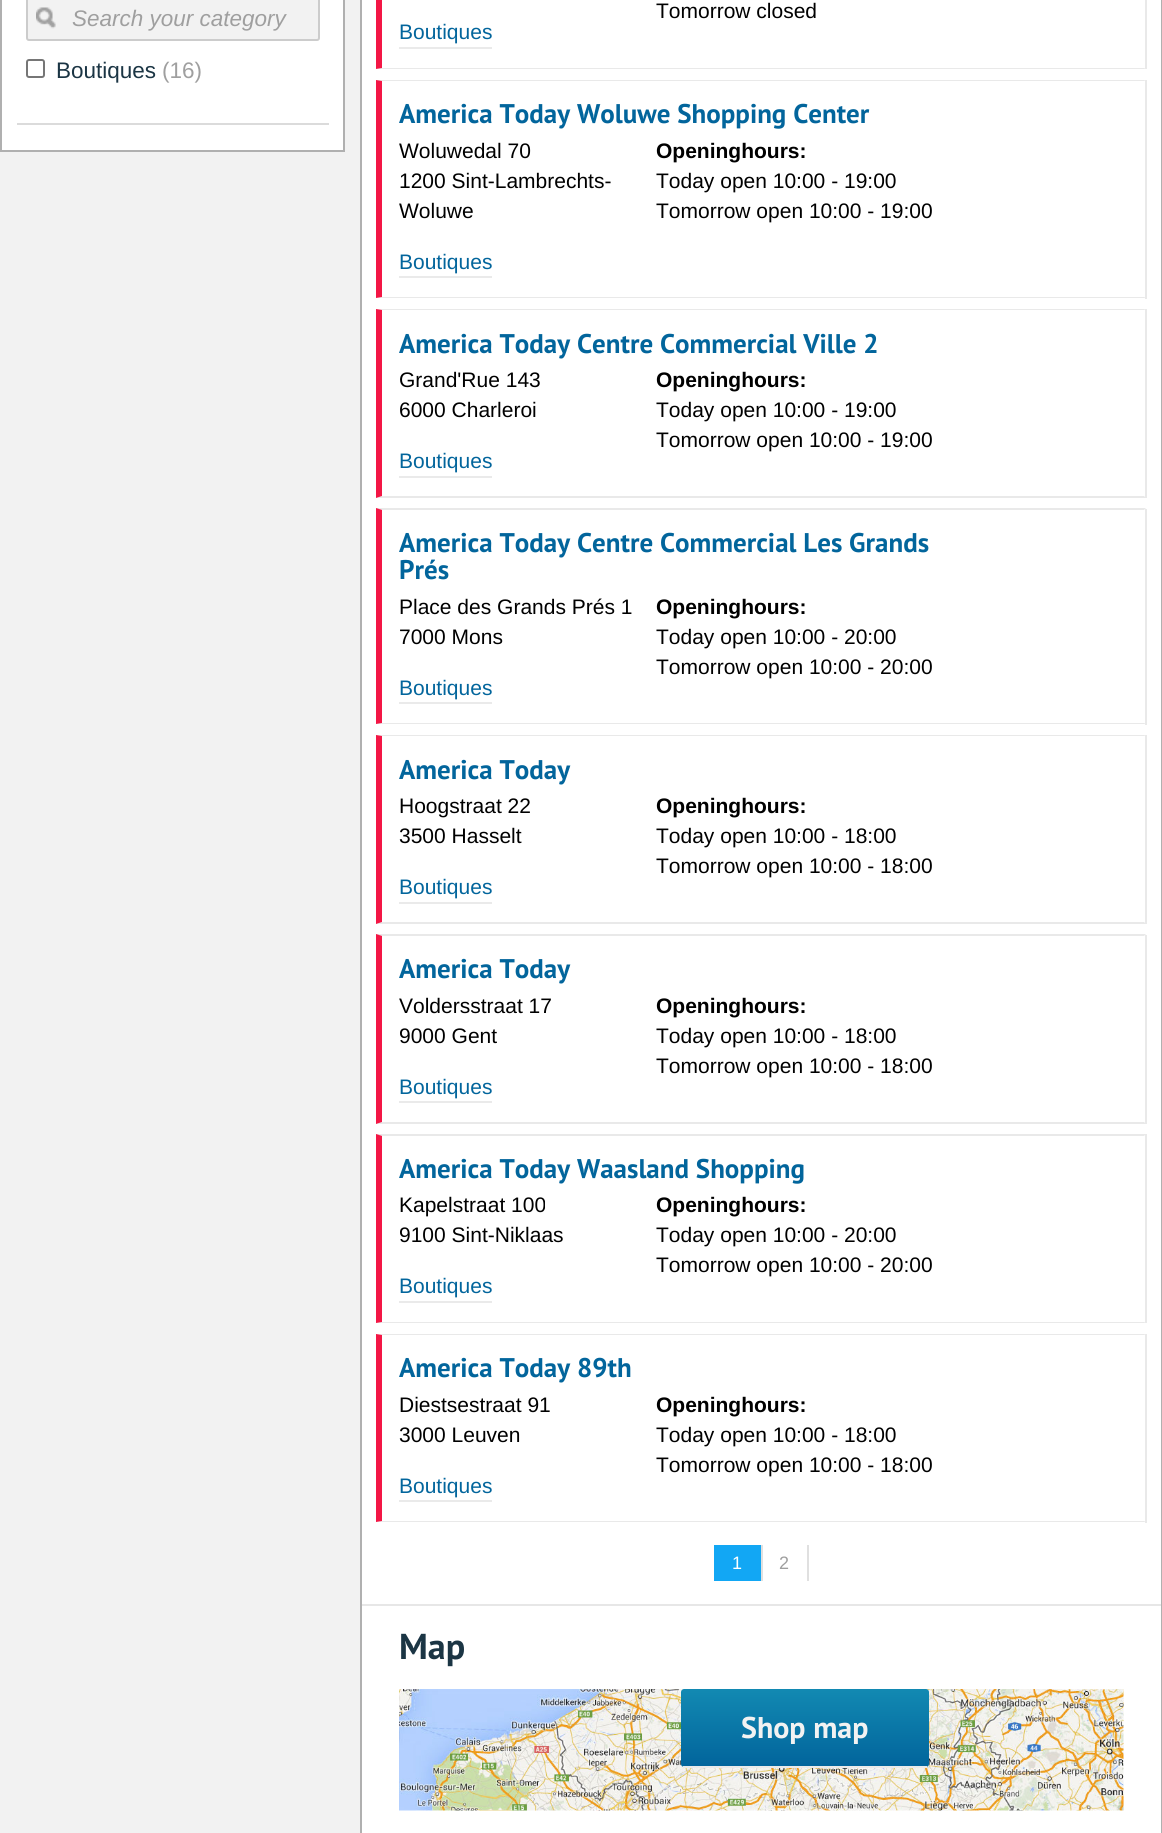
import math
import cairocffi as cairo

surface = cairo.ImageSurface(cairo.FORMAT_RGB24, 1162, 1833)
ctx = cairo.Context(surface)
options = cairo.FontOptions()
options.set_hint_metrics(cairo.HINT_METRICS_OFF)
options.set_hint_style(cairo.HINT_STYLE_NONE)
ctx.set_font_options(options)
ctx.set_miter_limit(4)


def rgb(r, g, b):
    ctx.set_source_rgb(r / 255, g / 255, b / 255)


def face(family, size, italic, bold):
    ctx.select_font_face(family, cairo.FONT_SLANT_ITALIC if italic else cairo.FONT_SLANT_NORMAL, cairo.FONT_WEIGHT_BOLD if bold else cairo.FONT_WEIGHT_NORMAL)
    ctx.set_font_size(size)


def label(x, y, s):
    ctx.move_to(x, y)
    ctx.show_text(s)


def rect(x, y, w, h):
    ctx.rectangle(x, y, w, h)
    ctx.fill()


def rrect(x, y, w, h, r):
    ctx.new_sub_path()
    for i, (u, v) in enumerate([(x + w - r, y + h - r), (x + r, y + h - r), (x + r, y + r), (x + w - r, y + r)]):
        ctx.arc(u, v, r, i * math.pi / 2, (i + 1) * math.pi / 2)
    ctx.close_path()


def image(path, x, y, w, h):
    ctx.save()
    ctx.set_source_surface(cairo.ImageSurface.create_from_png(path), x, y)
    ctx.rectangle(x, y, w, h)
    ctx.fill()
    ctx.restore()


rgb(242, 242, 242)
ctx.paint()
rgb(255, 255, 255)
ctx.rectangle(1, -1, 343, 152)
ctx.fill_preserve()
rgb(176, 176, 176)
ctx.stroke()
rgb(219, 219, 219)
rect(17, 123, 312, 2)
rgb(242, 242, 242)
rrect(26, -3, 294, 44, 3)
ctx.fill()
image('image0.png', 36, 7, 20, 22)
rrect(27, -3, 292, 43, 2)
rgb(204, 204, 204)
ctx.stroke()
face('Liberation Sans', 22.5, 1, 0)
rgb(159, 159, 159)
label(72, 26, 'Search your category')
rrect(27, 60, 17, 17, 2)
rgb(118, 118, 118)
ctx.stroke()
face('Liberation Sans', 22.5, 0, 0)
rgb(27, 53, 68)
label(56, 78, 'Boutiques')
rgb(159, 159, 159)
label(162, 78, '(16)')
rgb(255, 255, 255)
ctx.rectangle(361, -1, 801, 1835)
ctx.fill_preserve()
rgb(176, 176, 176)
ctx.stroke()
rgb(233, 233, 233)
rect(1145, 0, 2, 69)
ctx.new_path()
ctx.move_to(1146, 69)
ctx.line_to(376, 69)
ctx.line_to(382, 68)
ctx.line_to(1144, 68)
ctx.close_path()
ctx.fill()
rgb(243, 22, 69)
ctx.new_path()
ctx.move_to(376, 69)
ctx.line_to(376, -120)
ctx.line_to(382, -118)
ctx.line_to(382, 68)
ctx.close_path()
ctx.fill()
face('Liberation Sans', 21, 0, 0)
rgb(0, 0, 0)
label(656, 18, 'Tomorrow closed')
rgb(234, 234, 234)
rect(399, 47, 93, 2)
rgb(2, 101, 156)
label(399, 39, 'Boutiques')
rgb(233, 233, 233)
ctx.new_path()
ctx.move_to(376, 80)
ctx.line_to(1146, 80)
ctx.line_to(1144, 81)
ctx.line_to(382, 81)
ctx.close_path()
ctx.fill()
rect(1145, 80, 2, 219)
ctx.new_path()
ctx.move_to(1146, 298)
ctx.line_to(376, 298)
ctx.line_to(382, 297)
ctx.line_to(1144, 297)
ctx.close_path()
ctx.fill()
rgb(243, 22, 69)
ctx.new_path()
ctx.move_to(376, 298)
ctx.line_to(376, 80)
ctx.line_to(382, 81)
ctx.line_to(382, 297)
ctx.close_path()
ctx.fill()
face('PT Sans', 27, 0, 1)
rgb(2, 101, 156)
label(399, 123, 'America Today Woluwe Shopping Center')
face('Liberation Sans', 21, 0, 0)
rgb(0, 0, 0)
label(399, 158, 'Woluwedal 70')
label(399, 188, '1200 Sint-Lambrechts-')
label(399, 218, 'Woluwe')
rgb(234, 234, 234)
rect(399, 276, 93, 2)
rgb(2, 101, 156)
label(399, 269, 'Boutiques')
face('Liberation Sans', 21, 0, 1)
rgb(0, 0, 0)
label(656, 158, 'Openinghours:')
face('Liberation Sans', 21, 0, 0)
label(656, 188, 'Today open 10:00 - 19:00')
label(656, 218, 'Tomorrow open 10:00 - 19:00')
rgb(233, 233, 233)
ctx.new_path()
ctx.move_to(376, 309)
ctx.line_to(1146, 309)
ctx.line_to(1144, 310)
ctx.line_to(382, 310)
ctx.close_path()
ctx.fill()
rect(1145, 309, 2, 189)
ctx.new_path()
ctx.move_to(1146, 498)
ctx.line_to(376, 498)
ctx.line_to(382, 496)
ctx.line_to(1144, 496)
ctx.close_path()
ctx.fill()
rgb(243, 22, 69)
ctx.new_path()
ctx.move_to(376, 498)
ctx.line_to(376, 309)
ctx.line_to(382, 310)
ctx.line_to(382, 496)
ctx.close_path()
ctx.fill()
face('PT Sans', 27, 0, 1)
rgb(2, 101, 156)
label(399, 353, 'America Today Centre Commercial Ville 2')
face('Liberation Sans', 21, 0, 0)
rgb(0, 0, 0)
label(399, 387, 'Grand\'Rue 143')
label(399, 417, '6000 Charleroi')
rgb(234, 234, 234)
rect(399, 476, 93, 2)
rgb(2, 101, 156)
label(399, 468, 'Boutiques')
face('Liberation Sans', 21, 0, 1)
rgb(0, 0, 0)
label(656, 387, 'Openinghours:')
face('Liberation Sans', 21, 0, 0)
label(656, 417, 'Today open 10:00 - 19:00')
label(656, 447, 'Tomorrow open 10:00 - 19:00')
rgb(233, 233, 233)
ctx.new_path()
ctx.move_to(376, 508)
ctx.line_to(1146, 508)
ctx.line_to(1144, 510)
ctx.line_to(382, 510)
ctx.close_path()
ctx.fill()
rect(1145, 509, 2, 216)
ctx.new_path()
ctx.move_to(1146, 724)
ctx.line_to(376, 724)
ctx.line_to(382, 723)
ctx.line_to(1144, 723)
ctx.close_path()
ctx.fill()
rgb(243, 22, 69)
ctx.new_path()
ctx.move_to(376, 724)
ctx.line_to(376, 508)
ctx.line_to(382, 510)
ctx.line_to(382, 723)
ctx.close_path()
ctx.fill()
face('PT Sans', 27, 0, 1)
rgb(2, 101, 156)
label(399, 552, 'America Today Centre Commercial Les Grands')
label(399, 579, 'Prés')
face('Liberation Sans', 21, 0, 0)
rgb(0, 0, 0)
label(399, 614, 'Place des Grands Prés 1')
label(399, 644, '7000 Mons')
rgb(234, 234, 234)
rect(399, 702, 93, 2)
rgb(2, 101, 156)
label(399, 695, 'Boutiques')
face('Liberation Sans', 21, 0, 1)
rgb(0, 0, 0)
label(656, 614, 'Openinghours:')
face('Liberation Sans', 21, 0, 0)
label(656, 644, 'Today open 10:00 - 20:00')
label(656, 674, 'Tomorrow open 10:00 - 20:00')
rgb(233, 233, 233)
ctx.new_path()
ctx.move_to(376, 735)
ctx.line_to(1146, 735)
ctx.line_to(1144, 736)
ctx.line_to(382, 736)
ctx.close_path()
ctx.fill()
rect(1145, 735, 2, 189)
ctx.new_path()
ctx.move_to(1146, 924)
ctx.line_to(376, 924)
ctx.line_to(382, 922)
ctx.line_to(1144, 922)
ctx.close_path()
ctx.fill()
rgb(243, 22, 69)
ctx.new_path()
ctx.move_to(376, 924)
ctx.line_to(376, 735)
ctx.line_to(382, 736)
ctx.line_to(382, 922)
ctx.close_path()
ctx.fill()
face('PT Sans', 27, 0, 1)
rgb(2, 101, 156)
label(399, 779, 'America Today')
face('Liberation Sans', 21, 0, 0)
rgb(0, 0, 0)
label(399, 813, 'Hoogstraat 22')
label(399, 843, '3500 Hasselt')
rgb(234, 234, 234)
rect(399, 902, 93, 2)
rgb(2, 101, 156)
label(399, 894, 'Boutiques')
face('Liberation Sans', 21, 0, 1)
rgb(0, 0, 0)
label(656, 813, 'Openinghours:')
face('Liberation Sans', 21, 0, 0)
label(656, 843, 'Today open 10:00 - 18:00')
label(656, 873, 'Tomorrow open 10:00 - 18:00')
rgb(233, 233, 233)
ctx.new_path()
ctx.move_to(376, 934)
ctx.line_to(1146, 934)
ctx.line_to(1144, 936)
ctx.line_to(382, 936)
ctx.close_path()
ctx.fill()
rect(1145, 935, 2, 189)
ctx.new_path()
ctx.move_to(1146, 1124)
ctx.line_to(376, 1124)
ctx.line_to(382, 1122)
ctx.line_to(1144, 1122)
ctx.close_path()
ctx.fill()
rgb(243, 22, 69)
ctx.new_path()
ctx.move_to(376, 1124)
ctx.line_to(376, 934)
ctx.line_to(382, 936)
ctx.line_to(382, 1122)
ctx.close_path()
ctx.fill()
face('PT Sans', 27, 0, 1)
rgb(2, 101, 156)
label(399, 978, 'America Today')
face('Liberation Sans', 21, 0, 0)
rgb(0, 0, 0)
label(399, 1013, 'Voldersstraat 17')
label(399, 1043, '9000 Gent')
rgb(234, 234, 234)
rect(399, 1101, 93, 2)
rgb(2, 101, 156)
label(399, 1094, 'Boutiques')
face('Liberation Sans', 21, 0, 1)
rgb(0, 0, 0)
label(656, 1013, 'Openinghours:')
face('Liberation Sans', 21, 0, 0)
label(656, 1043, 'Today open 10:00 - 18:00')
label(656, 1073, 'Tomorrow open 10:00 - 18:00')
rgb(233, 233, 233)
ctx.new_path()
ctx.move_to(376, 1134)
ctx.line_to(1146, 1134)
ctx.line_to(1144, 1136)
ctx.line_to(382, 1136)
ctx.close_path()
ctx.fill()
rect(1145, 1134, 2, 189)
ctx.new_path()
ctx.move_to(1146, 1323)
ctx.line_to(376, 1323)
ctx.line_to(382, 1322)
ctx.line_to(1144, 1322)
ctx.close_path()
ctx.fill()
rgb(243, 22, 69)
ctx.new_path()
ctx.move_to(376, 1323)
ctx.line_to(376, 1134)
ctx.line_to(382, 1136)
ctx.line_to(382, 1322)
ctx.close_path()
ctx.fill()
face('PT Sans', 27, 0, 1)
rgb(2, 101, 156)
label(399, 1178, 'America Today Waasland Shopping')
face('Liberation Sans', 21, 0, 0)
rgb(0, 0, 0)
label(399, 1212, 'Kapelstraat 100')
label(399, 1242, '9100 Sint-Niklaas')
rgb(234, 234, 234)
rect(399, 1301, 93, 2)
rgb(2, 101, 156)
label(399, 1293, 'Boutiques')
face('Liberation Sans', 21, 0, 1)
rgb(0, 0, 0)
label(656, 1212, 'Openinghours:')
face('Liberation Sans', 21, 0, 0)
label(656, 1242, 'Today open 10:00 - 20:00')
label(656, 1272, 'Tomorrow open 10:00 - 20:00')
rgb(233, 233, 233)
ctx.new_path()
ctx.move_to(376, 1334)
ctx.line_to(1146, 1334)
ctx.line_to(1144, 1335)
ctx.line_to(382, 1335)
ctx.close_path()
ctx.fill()
rect(1145, 1334, 2, 189)
ctx.new_path()
ctx.move_to(1146, 1522)
ctx.line_to(376, 1522)
ctx.line_to(382, 1521)
ctx.line_to(1144, 1521)
ctx.close_path()
ctx.fill()
rgb(243, 22, 69)
ctx.new_path()
ctx.move_to(376, 1522)
ctx.line_to(376, 1334)
ctx.line_to(382, 1335)
ctx.line_to(382, 1521)
ctx.close_path()
ctx.fill()
face('PT Sans', 27, 0, 1)
rgb(2, 101, 156)
label(399, 1377, 'America Today 89th')
face('Liberation Sans', 21, 0, 0)
rgb(0, 0, 0)
label(399, 1412, 'Diestsestraat 91')
label(399, 1442, '3000 Leuven')
rgb(234, 234, 234)
rect(399, 1500, 93, 2)
rgb(2, 101, 156)
label(399, 1493, 'Boutiques')
face('Liberation Sans', 21, 0, 1)
rgb(0, 0, 0)
label(656, 1412, 'Openinghours:')
face('Liberation Sans', 21, 0, 0)
label(656, 1442, 'Today open 10:00 - 18:00')
label(656, 1472, 'Tomorrow open 10:00 - 18:00')
rgb(231, 231, 231)
rect(362, 1604, 799, 2)
rgb(224, 224, 224)
rect(761, 1545, 2, 36)
rgb(18, 167, 244)
rect(714, 1545, 47, 36)
face('Liberation Sans', 18, 0, 0)
rgb(255, 255, 255)
label(732, 1569, '1')
rgb(224, 224, 224)
rect(807, 1545, 2, 36)
rgb(159, 159, 159)
label(779, 1569, '2')
face('PT Sans', 36, 0, 1)
rgb(27, 53, 68)
label(399, 1659, 'Map')
image('image1.png', 399, 1689, 725, 122)
ctx.save()
rrect(681, 1689, 248, 78, 3)
ctx.clip()
gradient = cairo.LinearGradient(805, 1689, 805, 1766)
gradient.add_color_stop_rgba(0.01, 0.071, 0.537, 0.698, 1)
gradient.add_color_stop_rgba(0.99, 0.008, 0.396, 0.612, 1)
ctx.set_source(gradient)
ctx.new_path()
ctx.move_to(684, 1689)
ctx.line_to(926, 1689)
ctx.curve_to(927.5, 1689, 929, 1690.5, 929, 1692)
ctx.line_to(929, 1766)
ctx.line_to(681, 1766)
ctx.line_to(681, 1692)
ctx.curve_to(681, 1690.5, 682.5, 1689, 684, 1689)
ctx.close_path()
ctx.fill()
gradient = cairo.LinearGradient(805, 1766, 805, 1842)
gradient.add_color_stop_rgba(0.01, 0.071, 0.537, 0.698, 1)
gradient.add_color_stop_rgba(0.99, 0.008, 0.396, 0.612, 1)
ctx.set_source(gradient)
rect(681, 1766, 248, 1)
ctx.restore()
rgb(234, 234, 234)
rect(683, 1766, 244, 2)
face('PT Sans', 30, 0, 1)
rgb(242, 242, 242)
label(741, 1738, 'Shop map')
surface.write_to_png('render.png')
